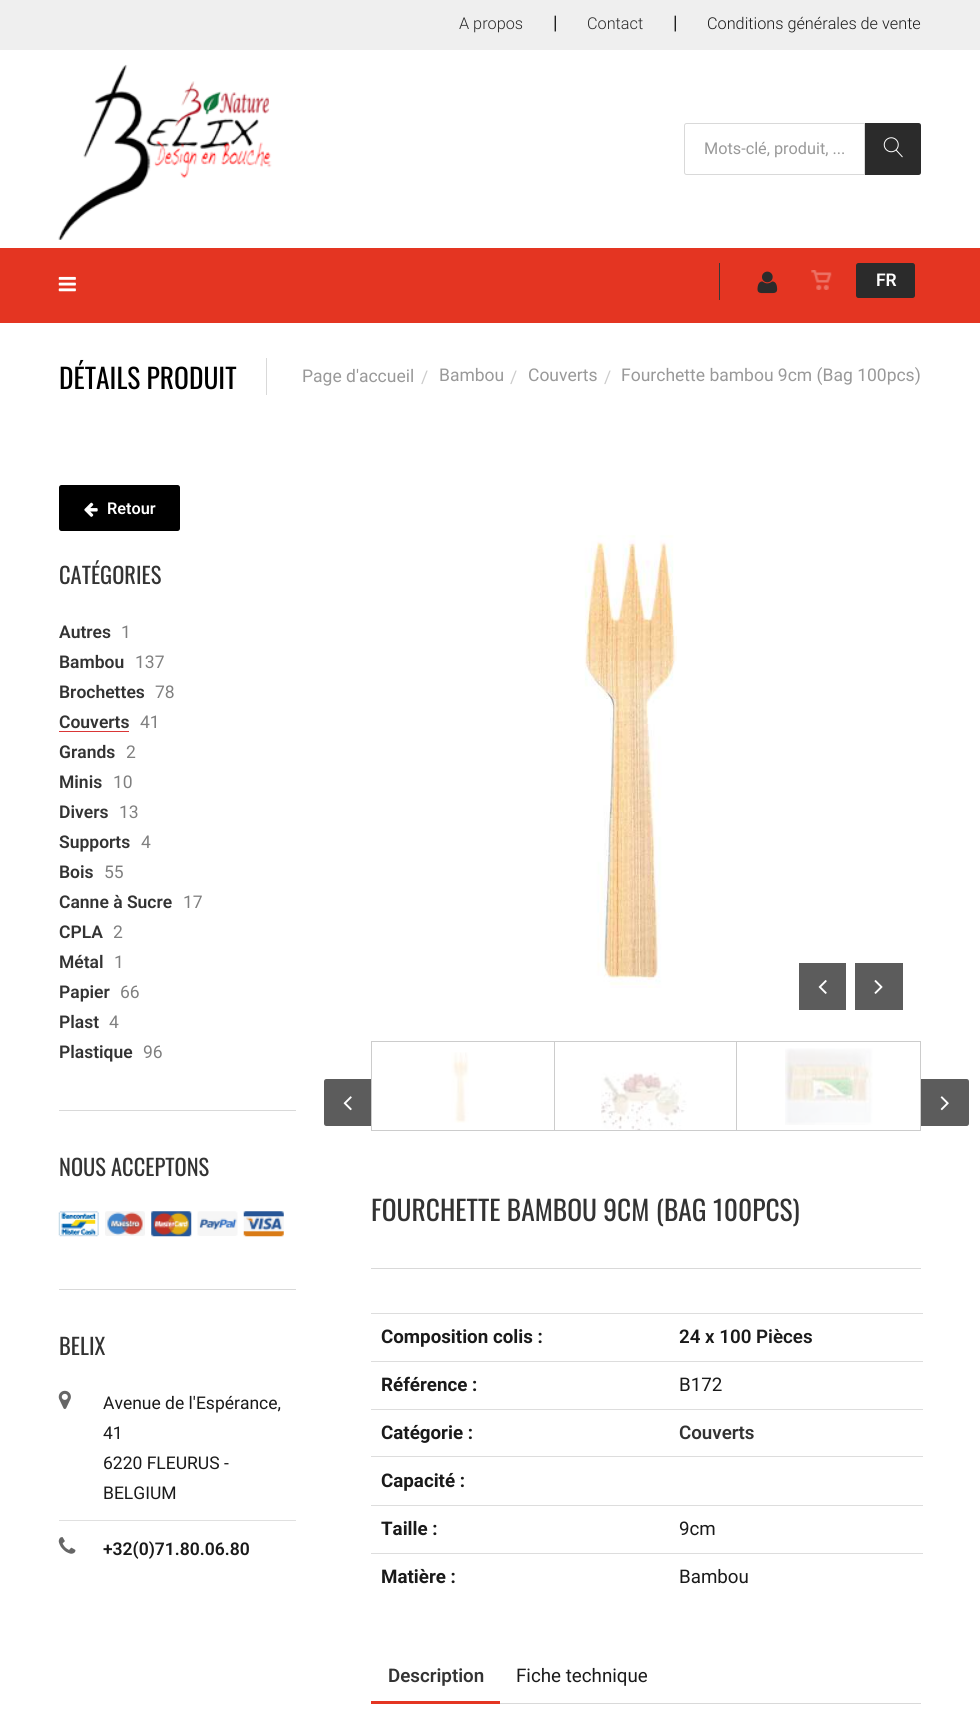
import math
import cairocffi as cairo

surface = cairo.ImageSurface(cairo.FORMAT_RGB24, 980, 1715)
ctx = cairo.Context(surface)
options = cairo.FontOptions()
options.set_hint_metrics(cairo.HINT_METRICS_OFF)
options.set_hint_style(cairo.HINT_STYLE_NONE)
ctx.set_font_options(options)
ctx.set_miter_limit(4)


def rgb(r, g, b):
    ctx.set_source_rgb(r / 255, g / 255, b / 255)


def face(family, size, italic, bold):
    ctx.select_font_face(family, cairo.FONT_SLANT_ITALIC if italic else cairo.FONT_SLANT_NORMAL, cairo.FONT_WEIGHT_BOLD if bold else cairo.FONT_WEIGHT_NORMAL)
    ctx.set_font_size(size)


def label(x, y, s):
    ctx.move_to(x, y)
    ctx.show_text(s)


def rect(x, y, w, h):
    ctx.rectangle(x, y, w, h)
    ctx.fill()


def rrect(x, y, w, h, r):
    ctx.new_sub_path()
    for i, (u, v) in enumerate([(x + w - r, y + h - r), (x + r, y + h - r), (x + r, y + r), (x + w - r, y + r)]):
        ctx.arc(u, v, r, i * math.pi / 2, (i + 1) * math.pi / 2)
    ctx.close_path()


def image(path, x, y, w, h):
    ctx.save()
    ctx.set_source_surface(cairo.ImageSurface.create_from_png(path), x, y)
    ctx.rectangle(x, y, w, h)
    ctx.fill()
    ctx.restore()


rgb(255, 255, 255)
ctx.paint()
rgb(228, 53, 34)
rect(0, 248, 980, 75)
rgb(239, 239, 239)
rect(0, 0, 980, 50)
face('Roboto Light', 16.25, 0, 0)
rgb(43, 43, 43)
label(459, 29, 'A propos')
face('Roboto', 18.75, 0, 0)
rgb(26, 26, 26)
label(553, 29, '|')
face('Roboto Light', 16.25, 0, 0)
rgb(43, 43, 43)
label(587, 29, 'Contact')
face('Roboto', 18.75, 0, 0)
rgb(26, 26, 26)
label(673, 29, '|')
face('Roboto Light', 16.25, 0, 0)
label(707, 29, 'Conditions générales de vente')
image('image0.png', 58, 64, 214, 176)
rgb(43, 43, 43)
ctx.new_path()
ctx.move_to(864, 123)
ctx.line_to(918.5, 123)
ctx.curve_to(920, 123, 921, 124, 921, 125.5)
ctx.line_to(921, 172.5)
ctx.curve_to(921, 174, 920, 175, 918.5, 175)
ctx.line_to(864, 175)
ctx.close_path()
ctx.fill()
ctx.new_path()
ctx.move_to(686.5, 123.5)
ctx.line_to(864.5, 123.5)
ctx.line_to(864.5, 174.5)
ctx.line_to(686.5, 174.5)
ctx.curve_to(685.5, 174.5, 684.5, 173.5, 684.5, 172.5)
ctx.line_to(684.5, 125.5)
ctx.curve_to(684.5, 124.5, 685.5, 123.5, 686.5, 123.5)
ctx.close_path()
rgb(217, 217, 217)
ctx.set_line_width(1)
ctx.stroke()
face('Roboto', 16.25, 0, 0)
rgb(153, 153, 153)
label(704, 154, 'Mots-clé, produit, ...')
image('image1.png', 883, 137, 20, 21)
image('image2.png', 58, 276, 18, 16)
rgb(56, 56, 56)
rect(719, 263, 1, 37)
image('image3.png', 757, 271, 21, 23)
image('image4.png', 811, 270, 21, 20)
rgb(43, 43, 43)
rrect(856, 263, 59, 35, 2.5)
ctx.fill()
face('Roboto SemiBold', 17.5, 0, 0)
rgb(255, 255, 255)
label(876, 286, 'FR')
face('Oswald', 27.5, 0, 0)
rgb(0, 0, 0)
label(59, 389, 'DÉTAILS PRODUIT')
rgb(217, 217, 217)
rect(266, 358, 1, 37)
face('Roboto', 17.5, 0, 0)
rgb(153, 153, 153)
label(302, 382, 'Page d\'accueil')
rgb(204, 204, 204)
label(421, 383, '/')
rgb(153, 153, 153)
label(439, 381, 'Bambou')
rgb(204, 204, 204)
label(510, 383, '/')
rgb(153, 153, 153)
label(528, 381, 'Couverts')
rgb(204, 204, 204)
label(604, 383, '/')
rgb(153, 153, 153)
label(621, 381, 'Fourchette bambou 9cm (Bag 100pcs)')
rgb(0, 0, 0)
rrect(59, 485, 121, 46, 2.5)
ctx.fill()
image('image5.png', 84, 502, 14, 15)
face('Roboto SemiBold', 16.25, 0, 0)
rgb(255, 255, 255)
label(107, 514, 'Retour')
face('Oswald', 22.5, 0, 0)
rgb(51, 51, 51)
label(59, 584, 'CATÉGORIES')
face('Roboto SemiBold', 17.5, 0, 0)
label(59, 638, 'Autres')
face('Roboto', 17.5, 0, 0)
rgb(128, 128, 128)
label(121, 638, '1')
face('Roboto SemiBold', 17.5, 0, 0)
rgb(51, 51, 51)
label(59, 668, 'Bambou')
face('Roboto', 17.5, 0, 0)
rgb(128, 128, 128)
label(135, 668, '137')
face('Roboto SemiBold', 17.5, 0, 0)
rgb(51, 51, 51)
label(59, 698, 'Brochettes')
face('Roboto', 17.5, 0, 0)
rgb(128, 128, 128)
label(155, 698, '78')
face('Roboto SemiBold', 17.5, 0, 0)
rgb(51, 51, 51)
label(59, 728, 'Couverts')
rgb(218, 54, 54)
rect(59, 731, 70, 1)
face('Roboto', 17.5, 0, 0)
rgb(128, 128, 128)
label(140, 728, '41')
face('Roboto SemiBold', 17.5, 0, 0)
rgb(51, 51, 51)
label(59, 758, 'Grands')
face('Roboto', 17.5, 0, 0)
rgb(128, 128, 128)
label(126, 758, '2')
face('Roboto SemiBold', 17.5, 0, 0)
rgb(51, 51, 51)
label(59, 788, 'Minis')
face('Roboto', 17.5, 0, 0)
rgb(128, 128, 128)
label(113, 788, '10')
face('Roboto SemiBold', 17.5, 0, 0)
rgb(51, 51, 51)
label(59, 818, 'Divers')
face('Roboto', 17.5, 0, 0)
rgb(128, 128, 128)
label(119, 818, '13')
face('Roboto SemiBold', 17.5, 0, 0)
rgb(51, 51, 51)
label(59, 848, 'Supports')
face('Roboto', 17.5, 0, 0)
rgb(128, 128, 128)
label(141, 848, '4')
face('Roboto SemiBold', 17.5, 0, 0)
rgb(51, 51, 51)
label(59, 878, 'Bois')
face('Roboto', 17.5, 0, 0)
rgb(128, 128, 128)
label(104, 878, '55')
face('Roboto SemiBold', 17.5, 0, 0)
rgb(51, 51, 51)
label(59, 908, 'Canne à Sucre')
face('Roboto', 17.5, 0, 0)
rgb(128, 128, 128)
label(183, 908, '17')
face('Roboto SemiBold', 17.5, 0, 0)
rgb(51, 51, 51)
label(59, 938, 'CPLA')
face('Roboto', 17.5, 0, 0)
rgb(128, 128, 128)
label(113, 938, '2')
face('Roboto SemiBold', 17.5, 0, 0)
rgb(51, 51, 51)
label(59, 968, 'Métal')
face('Roboto', 17.5, 0, 0)
rgb(128, 128, 128)
label(114, 968, '1')
face('Roboto SemiBold', 17.5, 0, 0)
rgb(51, 51, 51)
label(59, 998, 'Papier')
face('Roboto', 17.5, 0, 0)
rgb(128, 128, 128)
label(120, 998, '66')
face('Roboto SemiBold', 17.5, 0, 0)
rgb(51, 51, 51)
label(59, 1028, 'Plast')
face('Roboto', 17.5, 0, 0)
rgb(128, 128, 128)
label(109, 1028, '4')
face('Roboto SemiBold', 17.5, 0, 0)
rgb(51, 51, 51)
label(59, 1058, 'Plastique')
face('Roboto', 17.5, 0, 0)
rgb(128, 128, 128)
label(143, 1058, '96')
rgb(217, 217, 217)
rect(59, 1110, 237, 1)
face('Oswald', 22.5, 0, 0)
rgb(51, 51, 51)
label(59, 1176, 'NOUS ACCEPTONS')
image('image6.png', 58, 1211, 41, 26)
image('image7.png', 105, 1211, 40, 25)
image('image8.png', 151, 1211, 41, 26)
image('image9.png', 197, 1211, 41, 25)
image('image10.png', 243, 1211, 41, 26)
rgb(217, 217, 217)
rect(59, 1289, 237, 1)
rgb(51, 51, 51)
label(59, 1355, 'BELIX')
rgb(224, 224, 224)
rect(59, 1520, 237, 1)
image('image11.png', 58, 1390, 13, 19)
face('Roboto', 17.5, 0, 0)
rgb(26, 26, 26)
label(103, 1409, 'Avenue de l\'Espérance,')
label(103, 1439, '41')
label(103, 1469, '6220 FLEURUS -')
label(103, 1499, 'BELGIUM')
image('image12.png', 58, 1537, 18, 17)
face('Roboto SemiBold', 17.5, 0, 0)
label(103, 1555, '+32(0)71.80.06.80')
image('image13.png', 584, 535, 93, 453)
rgb(92, 92, 92)
rect(799, 963, 47, 47)
image('image14.png', 818, 980, 9, 14)
rect(855, 963, 48, 47)
image('image15.png', 874, 980, 9, 14)
ctx.new_path()
ctx.move_to(326.5, 1079)
ctx.line_to(371, 1079)
ctx.line_to(371, 1126)
ctx.line_to(326.5, 1126)
ctx.curve_to(325, 1126, 324, 1125, 324, 1123.5)
ctx.line_to(324, 1081.5)
ctx.curve_to(324, 1080, 325, 1079, 326.5, 1079)
ctx.close_path()
ctx.fill()
image('image16.png', 343, 1096, 9, 15)
ctx.rectangle(371.5, 1041.5, 183, 89)
rgb(204, 204, 204)
ctx.stroke()
image('image17.png', 451, 1052, 18, 71)
rect(555, 1041, 366, 1)
rect(736, 1041, 1, 90)
rect(555, 1130, 183, 1)
image('image18.png', 601, 1072, 86, 58)
rect(920, 1041, 1, 90)
rect(738, 1130, 183, 1)
image('image19.png', 785, 1048, 88, 77)
rgb(92, 92, 92)
ctx.new_path()
ctx.move_to(921, 1079)
ctx.line_to(966.5, 1079)
ctx.curve_to(968, 1079, 969, 1080, 969, 1081.5)
ctx.line_to(969, 1123.5)
ctx.curve_to(969, 1125, 968, 1126, 966.5, 1126)
ctx.line_to(921, 1126)
ctx.close_path()
ctx.fill()
image('image20.png', 940, 1096, 9, 15)
face('Oswald', 27.5, 0, 0)
rgb(51, 51, 51)
label(371, 1221, 'FOURCHETTE BAMBOU 9CM (BAG 100PCS)')
rgb(217, 217, 217)
rect(371, 1268, 550, 1)
face('Roboto', 18.75, 0, 1)
rgb(26, 26, 26)
label(381, 1343, 'Composition colis :')
rgb(221, 221, 221)
rect(371, 1313, 552, 1)
face('Roboto SemiBold', 18.75, 0, 0)
rgb(26, 26, 26)
label(679, 1343, '24 x 100 Pièces')
face('Roboto', 18.75, 0, 1)
label(381, 1391, 'Référence :')
rgb(221, 221, 221)
rect(371, 1361, 552, 1)
face('Roboto', 18.75, 0, 0)
rgb(26, 26, 26)
label(679, 1391, 'B172')
face('Roboto', 18.75, 0, 1)
label(381, 1439, 'Catégorie :')
rgb(221, 221, 221)
rect(371, 1409, 552, 1)
face('Roboto SemiBold', 18.75, 0, 0)
rgb(51, 51, 51)
label(679, 1439, 'Couverts')
rgb(221, 221, 221)
rect(371, 1456, 552, 1)
face('Roboto', 18.75, 0, 1)
rgb(26, 26, 26)
label(381, 1487, 'Capacité :')
label(381, 1535, 'Taille :')
rgb(221, 221, 221)
rect(371, 1505, 552, 1)
face('Roboto', 18.75, 0, 0)
rgb(26, 26, 26)
label(679, 1535, '9cm')
face('Roboto', 18.75, 0, 1)
label(381, 1583, 'Matière :')
rgb(221, 221, 221)
rect(371, 1553, 552, 1)
face('Roboto', 18.75, 0, 0)
rgb(26, 26, 26)
label(679, 1583, 'Bambou')
rgb(217, 217, 217)
rect(500, 1703, 421, 1)
rgb(228, 53, 34)
rect(371, 1701, 129, 3)
face('Roboto SemiBold', 18.75, 0, 0)
rgb(51, 51, 51)
label(388, 1682, 'Description')
face('Roboto', 18.75, 0, 0)
rgb(26, 26, 26)
label(516, 1682, 'Fiche technique')
surface.write_to_png('render.png')
